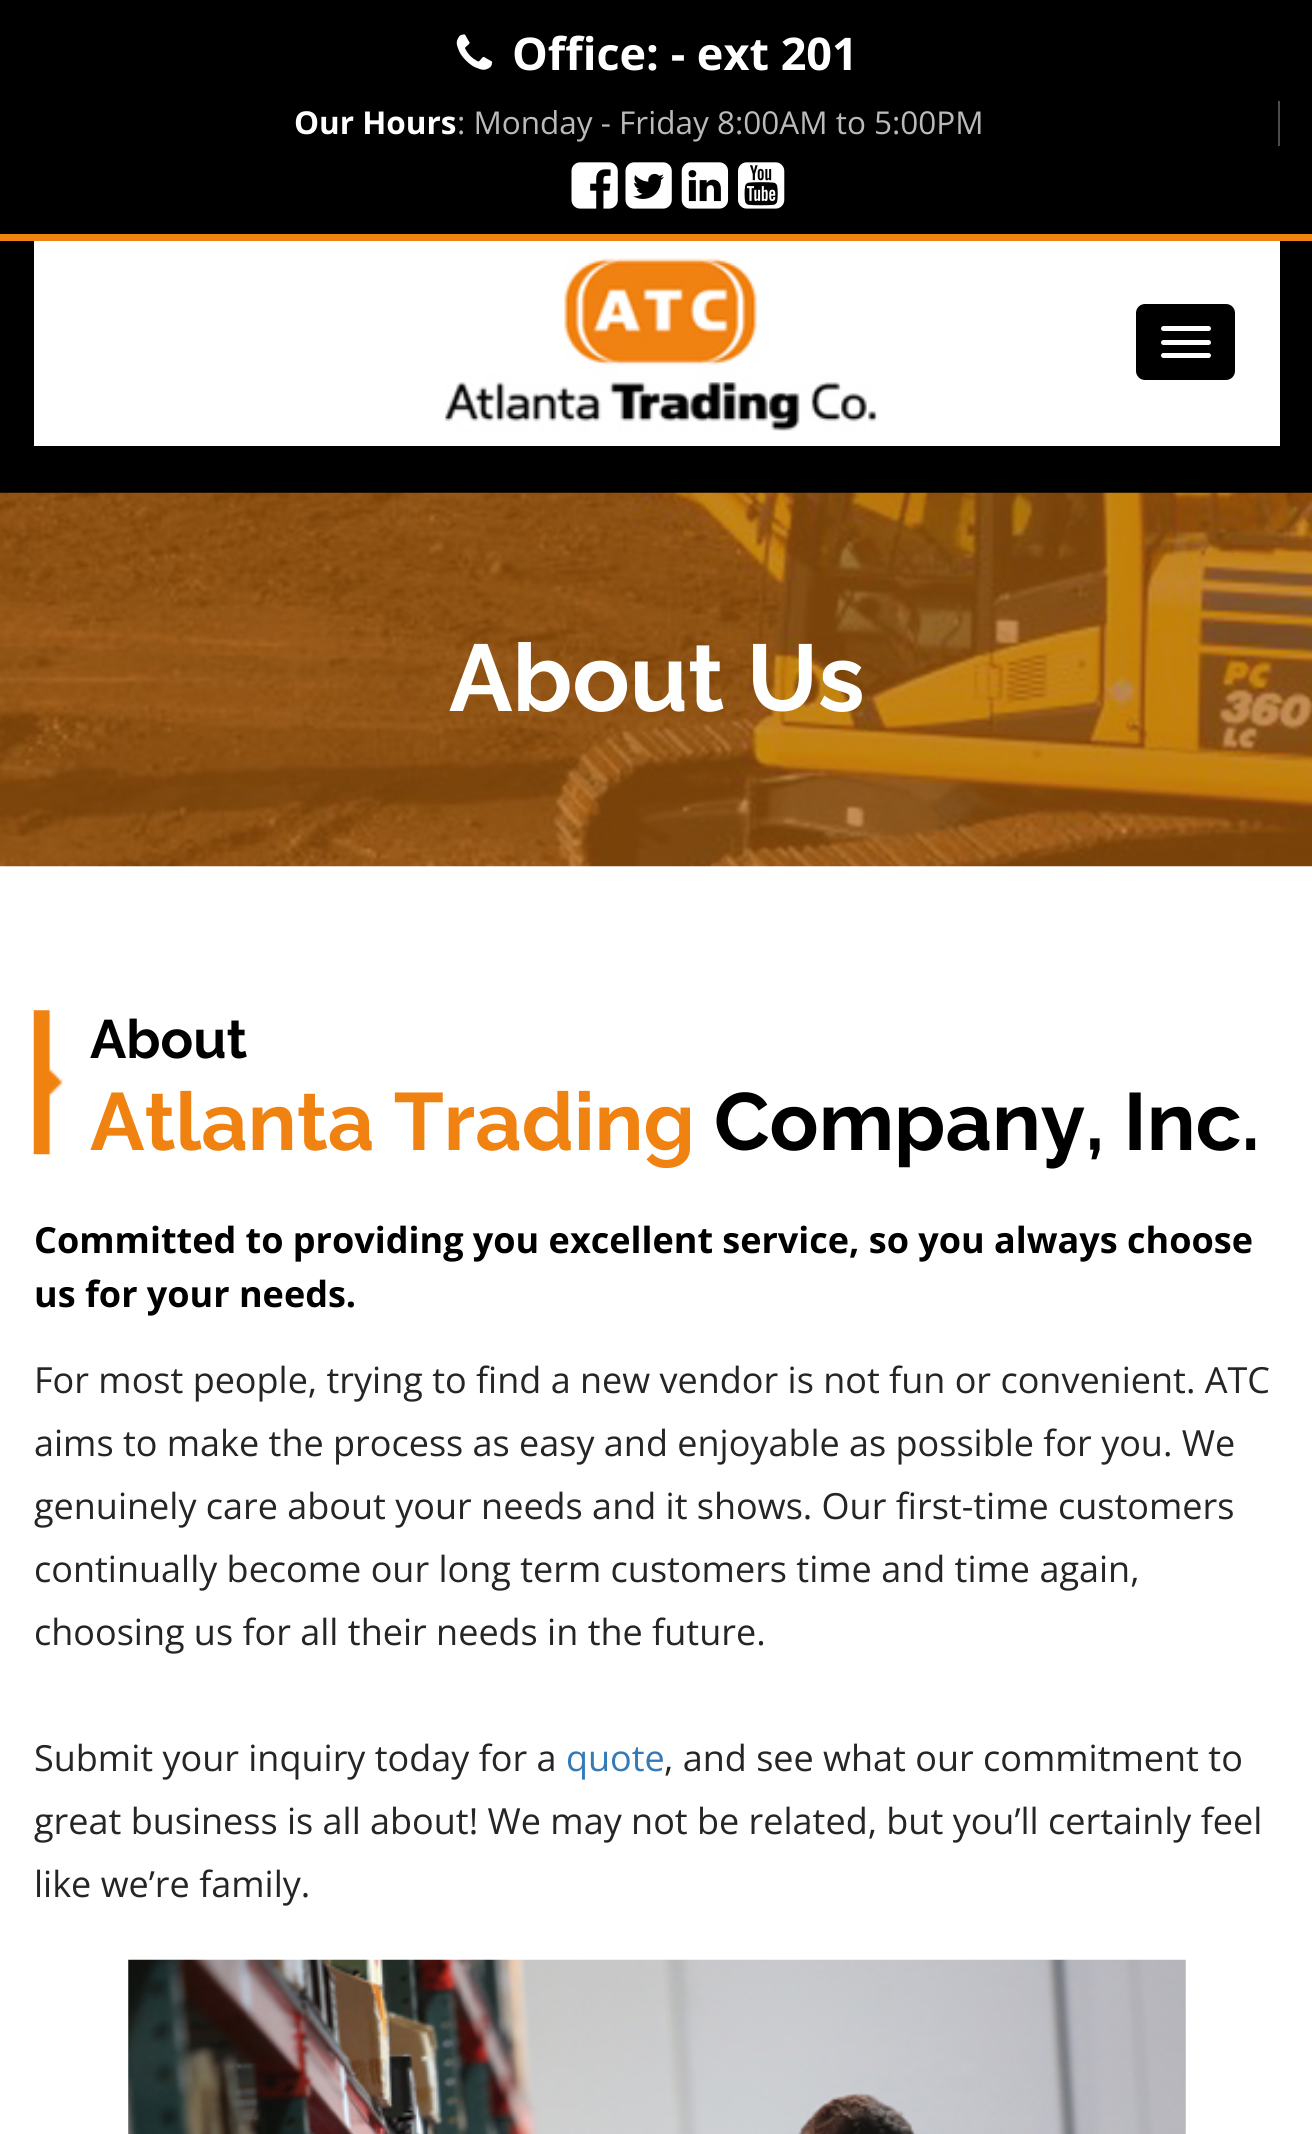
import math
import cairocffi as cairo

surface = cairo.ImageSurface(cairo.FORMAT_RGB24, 1312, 2134)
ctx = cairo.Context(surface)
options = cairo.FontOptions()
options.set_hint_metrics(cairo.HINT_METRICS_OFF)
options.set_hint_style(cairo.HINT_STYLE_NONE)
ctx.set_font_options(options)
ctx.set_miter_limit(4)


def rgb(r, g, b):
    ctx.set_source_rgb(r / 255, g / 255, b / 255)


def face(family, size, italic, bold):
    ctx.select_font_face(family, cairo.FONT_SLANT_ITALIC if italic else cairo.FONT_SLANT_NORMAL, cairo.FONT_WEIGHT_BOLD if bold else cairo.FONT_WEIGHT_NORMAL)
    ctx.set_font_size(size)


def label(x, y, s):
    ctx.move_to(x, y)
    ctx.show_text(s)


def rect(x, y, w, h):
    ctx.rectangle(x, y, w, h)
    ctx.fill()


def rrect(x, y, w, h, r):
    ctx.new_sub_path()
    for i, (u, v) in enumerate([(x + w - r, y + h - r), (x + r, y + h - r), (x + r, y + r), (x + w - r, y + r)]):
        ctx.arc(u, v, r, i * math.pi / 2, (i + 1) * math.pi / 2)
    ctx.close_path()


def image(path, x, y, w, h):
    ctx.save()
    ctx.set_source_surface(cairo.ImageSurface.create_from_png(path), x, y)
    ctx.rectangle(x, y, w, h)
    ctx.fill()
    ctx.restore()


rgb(255, 255, 255)
ctx.paint()
rgb(0, 0, 0)
rect(0, 0, 1312, 234)
rgb(240, 130, 18)
rect(0, 234, 1312, 7)
image('image0.png', 456, 34, 37, 36)
face('Open Sans', 45, 0, 1)
rgb(255, 255, 255)
label(512, 70, 'Office: - ext 201')
rgb(77, 77, 77)
rect(1278, 101, 2, 45)
face('Open Sans', 31.5, 0, 1)
rgb(255, 255, 255)
label(294, 134, 'Our Hours')
face('Open Sans', 31.5, 0, 0)
rgb(186, 186, 186)
label(457, 134, ': Monday - Friday 8:00AM to 5:00PM')
image('image1.png', 571, 162, 47, 47)
image('image2.png', 625, 162, 47, 47)
image('image3.png', 681, 162, 48, 47)
image('image4.png', 738, 162, 47, 47)
rgb(0, 0, 0)
rect(0, 241, 1312, 252)
rgb(255, 255, 255)
rect(34, 241, 1246, 205)
image('image5.png', 444, 258, 434, 174)
rgb(0, 0, 0)
rrect(1136, 304, 99, 76, 9)
ctx.fill()
rgb(255, 255, 255)
rrect(1161, 326, 50, 5, 2.5)
ctx.fill()
rrect(1161, 340, 50, 5, 2.5)
ctx.fill()
rrect(1161, 353, 50, 5, 2.5)
ctx.fill()
image('image6.png', 0, 492, 1312, 375)
face('Raleway', 94.5, 0, 1)
label(449, 711, 'About Us')
image('image7.png', 33, 1010, 30, 145)
face('Raleway', 54, 0, 1)
rgb(0, 0, 0)
label(90, 1058, 'About')
face('Raleway', 81, 0, 1)
rgb(240, 130, 18)
label(90, 1150, 'Atlanta Trading')
rgb(0, 0, 0)
label(714, 1150, 'Company, Inc.')
face('Open Sans', 36, 0, 1)
label(34, 1253, 'Committed to providing you excellent service, so you always choose')
label(34, 1307, 'us for your needs.')
face('Open Sans', 36, 0, 0)
rgb(37, 37, 37)
label(34, 1393, 'For most people, trying to find a new vendor is not fun or convenient. ATC')
label(34, 1456, 'aims to make the process as easy and enjoyable as possible for you. We')
label(34, 1519, 'genuinely care about your needs and it shows. Our first-time customers')
label(34, 1582, 'continually become our long term customers time and time again,')
label(34, 1645, 'choosing us for all their needs in the future.')
label(34, 1771, 'Submit your inquiry today for a')
rgb(51, 122, 183)
label(566, 1771, 'quote')
rgb(37, 37, 37)
label(664, 1771, ', and see what our commitment to')
label(34, 1834, 'great business is all about! We may not be related, but you’ll certainly feel')
label(34, 1897, 'like we’re family.')
image('image8.png', 128, 1959, 1058, 175)
surface.write_to_png('render.png')
